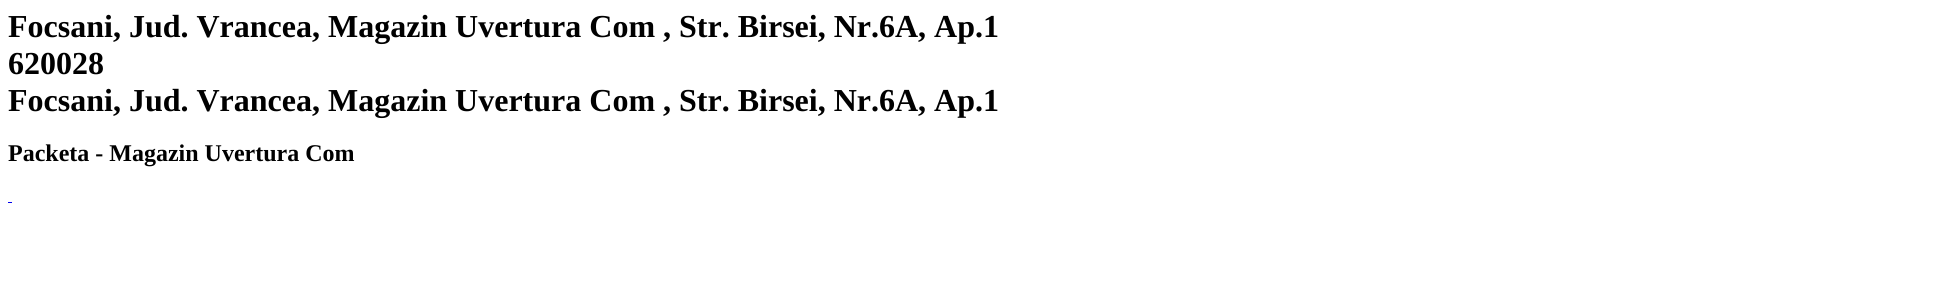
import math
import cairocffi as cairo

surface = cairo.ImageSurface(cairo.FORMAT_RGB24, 1940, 304)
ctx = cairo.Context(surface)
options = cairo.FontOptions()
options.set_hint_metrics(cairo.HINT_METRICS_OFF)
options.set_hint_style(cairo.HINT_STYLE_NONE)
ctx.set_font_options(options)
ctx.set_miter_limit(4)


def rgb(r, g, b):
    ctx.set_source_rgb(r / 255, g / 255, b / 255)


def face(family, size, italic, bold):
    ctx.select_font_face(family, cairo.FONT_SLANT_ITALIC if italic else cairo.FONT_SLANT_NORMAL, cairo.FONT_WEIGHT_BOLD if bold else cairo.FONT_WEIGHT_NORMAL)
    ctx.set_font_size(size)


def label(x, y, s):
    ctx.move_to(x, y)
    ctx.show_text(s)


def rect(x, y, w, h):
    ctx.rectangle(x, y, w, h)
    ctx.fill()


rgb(255, 255, 255)
ctx.paint()
face('Liberation Serif', 32, 0, 1)
rgb(0, 0, 0)
label(8, 37, 'Focsani, Jud. Vrancea, Magazin Uvertura Com , Str. Birsei, Nr.6A, Ap.1')
label(8, 74, '620028')
label(8, 111, 'Focsani, Jud. Vrancea, Magazin Uvertura Com , Str. Birsei, Nr.6A, Ap.1')
face('Liberation Serif', 24, 0, 1)
label(8, 161, 'Packeta - Magazin Uvertura Com')
rgb(0, 0, 238)
rect(8, 202, 4, 1)
surface.write_to_png('render.png')
